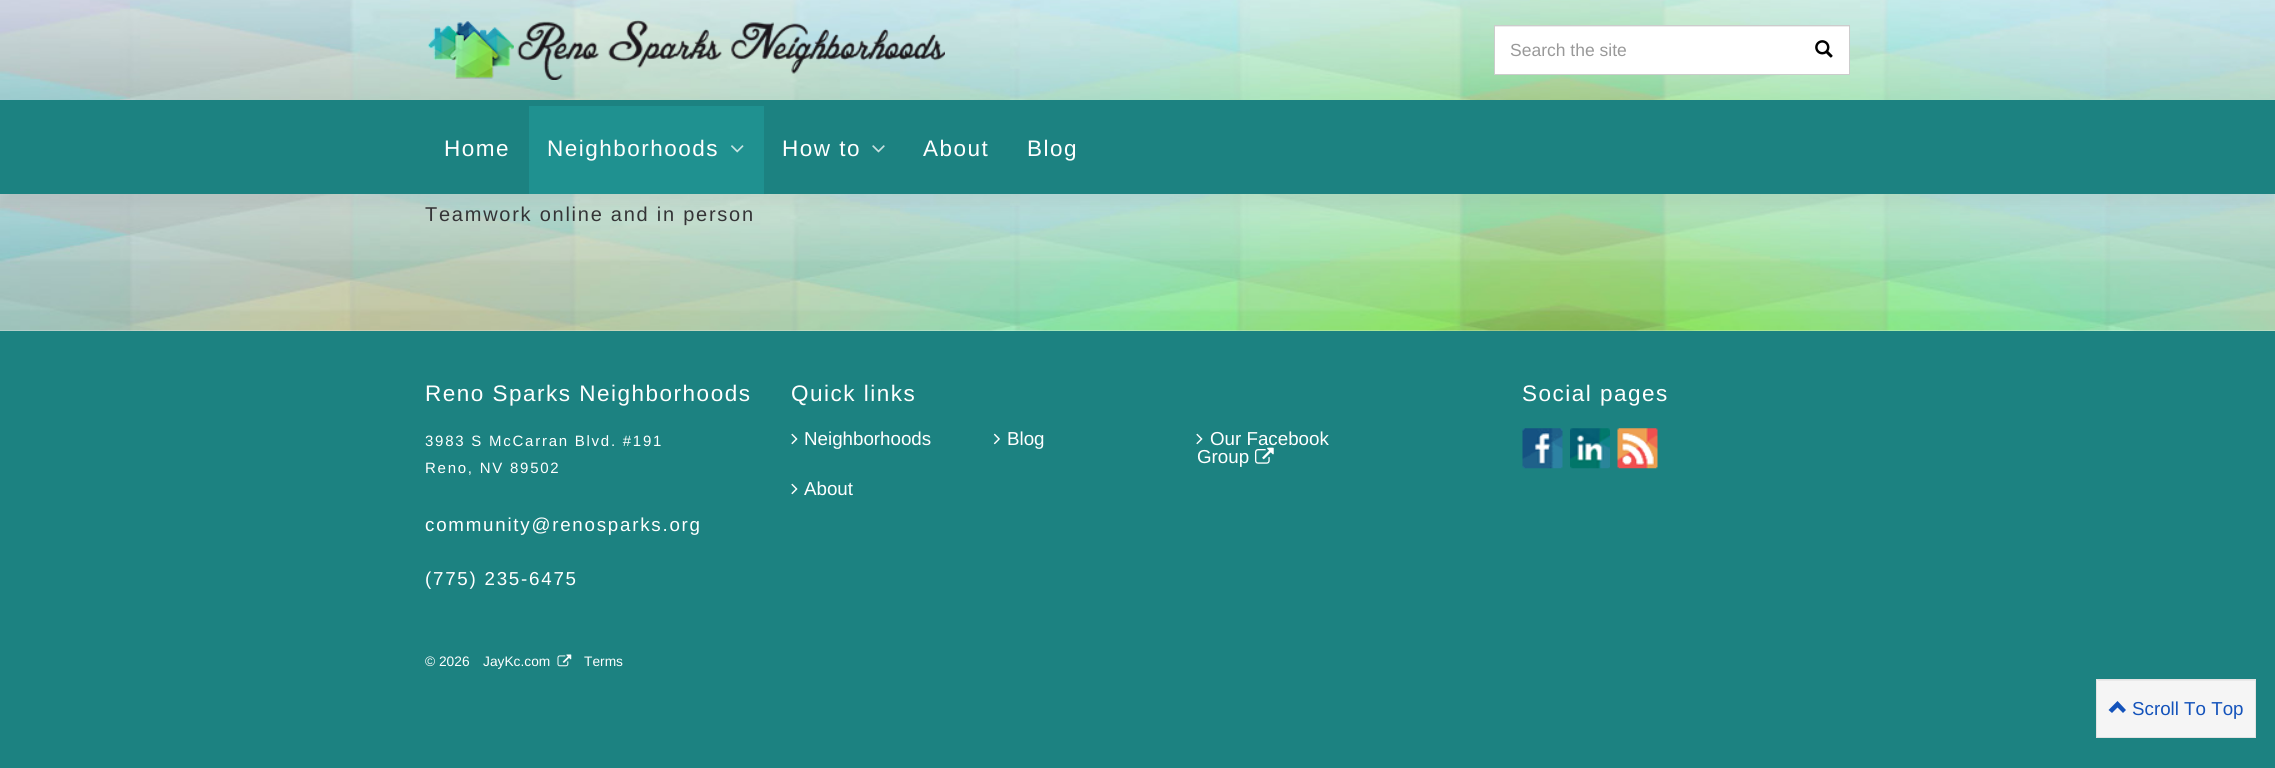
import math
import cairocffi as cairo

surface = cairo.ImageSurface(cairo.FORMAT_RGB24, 2275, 768)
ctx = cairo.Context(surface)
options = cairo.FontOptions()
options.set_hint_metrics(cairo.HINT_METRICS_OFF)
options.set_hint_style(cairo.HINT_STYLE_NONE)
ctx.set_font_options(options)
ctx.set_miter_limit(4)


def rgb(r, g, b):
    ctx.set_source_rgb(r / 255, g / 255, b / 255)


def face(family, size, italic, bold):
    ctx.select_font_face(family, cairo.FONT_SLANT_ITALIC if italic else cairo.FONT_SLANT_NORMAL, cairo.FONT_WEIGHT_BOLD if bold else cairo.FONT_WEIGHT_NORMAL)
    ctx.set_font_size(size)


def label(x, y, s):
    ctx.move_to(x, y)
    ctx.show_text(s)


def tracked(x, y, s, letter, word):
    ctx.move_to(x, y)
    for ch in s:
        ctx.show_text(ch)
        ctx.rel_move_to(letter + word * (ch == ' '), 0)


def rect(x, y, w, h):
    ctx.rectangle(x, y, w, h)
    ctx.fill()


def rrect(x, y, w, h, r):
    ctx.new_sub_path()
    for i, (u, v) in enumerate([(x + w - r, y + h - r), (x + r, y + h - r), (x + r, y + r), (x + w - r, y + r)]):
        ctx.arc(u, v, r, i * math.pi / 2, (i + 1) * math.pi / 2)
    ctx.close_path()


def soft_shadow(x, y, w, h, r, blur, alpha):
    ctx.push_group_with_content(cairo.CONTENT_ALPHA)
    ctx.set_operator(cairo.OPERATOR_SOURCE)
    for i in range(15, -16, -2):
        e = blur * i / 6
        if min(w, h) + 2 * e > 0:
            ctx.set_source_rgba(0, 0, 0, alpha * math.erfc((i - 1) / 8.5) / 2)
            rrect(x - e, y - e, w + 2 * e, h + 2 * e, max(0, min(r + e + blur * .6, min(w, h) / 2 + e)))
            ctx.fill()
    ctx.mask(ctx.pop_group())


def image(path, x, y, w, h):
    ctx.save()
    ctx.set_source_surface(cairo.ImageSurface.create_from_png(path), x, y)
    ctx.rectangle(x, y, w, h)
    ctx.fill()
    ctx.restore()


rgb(255, 255, 255)
ctx.paint()
image('image0.png', 0, 330, 2275, 1)
image('image6.png', 0, 194, 2275, 137)
rgb(0, 0, 0)
soft_shadow(0, 13, 2275, 193, 0, 6, 0.05)
image('image1.png', 0, 0, 2275, 100)
image('image2.png', 427, 20, 518, 60)
rgb(255, 255, 255)
rect(1495, 27, 354, 47)
rgb(236, 236, 236)
rect(1495, 26, 354, 1)
ctx.rectangle(1494.5, 25.5, 355, 49)
rgb(204, 204, 204)
ctx.set_line_width(1)
ctx.stroke()
face('Liberation Sans', 17.5, 0, 0)
rgb(153, 153, 153)
label(1510, 56, 'Search the site')
image('image3.png', 1815, 40, 18, 18)
rgb(28, 130, 129)
rect(0, 100, 2275, 94)
face('Liberation Sans', 22.5, 0, 0)
rgb(255, 255, 255)
tracked(444, 156, 'Home', 1.5, 0)
rgb(31, 145, 144)
rect(529, 106, 235, 88)
rgb(255, 255, 255)
tracked(547, 156, 'Neighborhoods', 1.5, 0)
image('image4.png', 731, 145, 13, 8)
tracked(782, 156, 'How to', 1.5, 0)
image('image5.png', 872, 145, 13, 8)
tracked(923, 156, 'About', 1.5, 0)
tracked(1027, 156, 'Blog', 1.5, 0)
face('Liberation Sans', 20, 0, 0)
rgb(52, 52, 54)
tracked(425, 221, 'Teamwork online and in person', 1.75, 0)
rgb(28, 130, 129)
rect(0, 331, 2275, 437)
face('Liberation Sans', 22.5, 0, 0)
rgb(255, 255, 255)
tracked(425, 401, 'Reno Sparks Neighborhoods', 1.5, 0)
face('Liberation Sans', 15, 0, 0)
tracked(425, 446, '3983 S McCarran Blvd. #191', 1.75, 0)
tracked(425, 473, 'Reno, NV 89502', 1.75, 0)
face('Liberation Sans', 18.75, 0, 0)
tracked(425, 531, 'community@renosparks.org', 1.75, 0)
tracked(425, 585, '(775) 235-6475', 1.75, 0)
face('Liberation Sans', 22.5, 0, 0)
tracked(791, 401, 'Quick links', 1.5, 0)
image('image7.png', 791, 433, 7, 12)
face('Liberation Sans', 18.75, 0, 0)
label(804, 445, 'Neighborhoods')
image('image8.png', 993, 433, 7, 12)
label(1007, 445, 'Blog')
image('image7.png', 1196, 433, 7, 12)
label(1210, 445, 'Our Facebook')
label(1197, 463, 'Group')
image('image9.png', 1255, 447, 19, 17)
image('image7.png', 791, 483, 7, 12)
label(804, 495, 'About')
face('Liberation Sans', 22.5, 0, 0)
tracked(1522, 401, 'Social pages', 1.5, 0)
image('image10.png', 1522, 428, 41, 41)
image('image11.png', 1570, 428, 40, 41)
image('image12.png', 1617, 428, 41, 41)
face('Liberation Sans', 13.75, 0, 0)
label(425, 666, '© 2026')
label(483, 666, 'JayKc.com')
image('image13.png', 557, 654, 15, 13)
label(584, 666, 'Terms')
rgb(245, 245, 245)
rect(2097, 680, 158, 57)
rgb(233, 233, 233)
rect(2098, 680, 157, 1)
ctx.rectangle(2096.5, 679.5, 159, 58)
rgb(227, 227, 227)
ctx.stroke()
rgb(20, 83, 187)
ctx.new_path()
ctx.move_to(2126, 710)
ctx.line_to(2123, 713)
ctx.line_to(2117.5, 707.5)
ctx.line_to(2112, 713)
ctx.line_to(2108.5, 710)
ctx.line_to(2117.5, 701)
ctx.close_path()
ctx.fill()
face('Liberation Sans', 18.75, 0, 0)
label(2132, 715, 'Scroll To Top')
surface.write_to_png('render.png')
